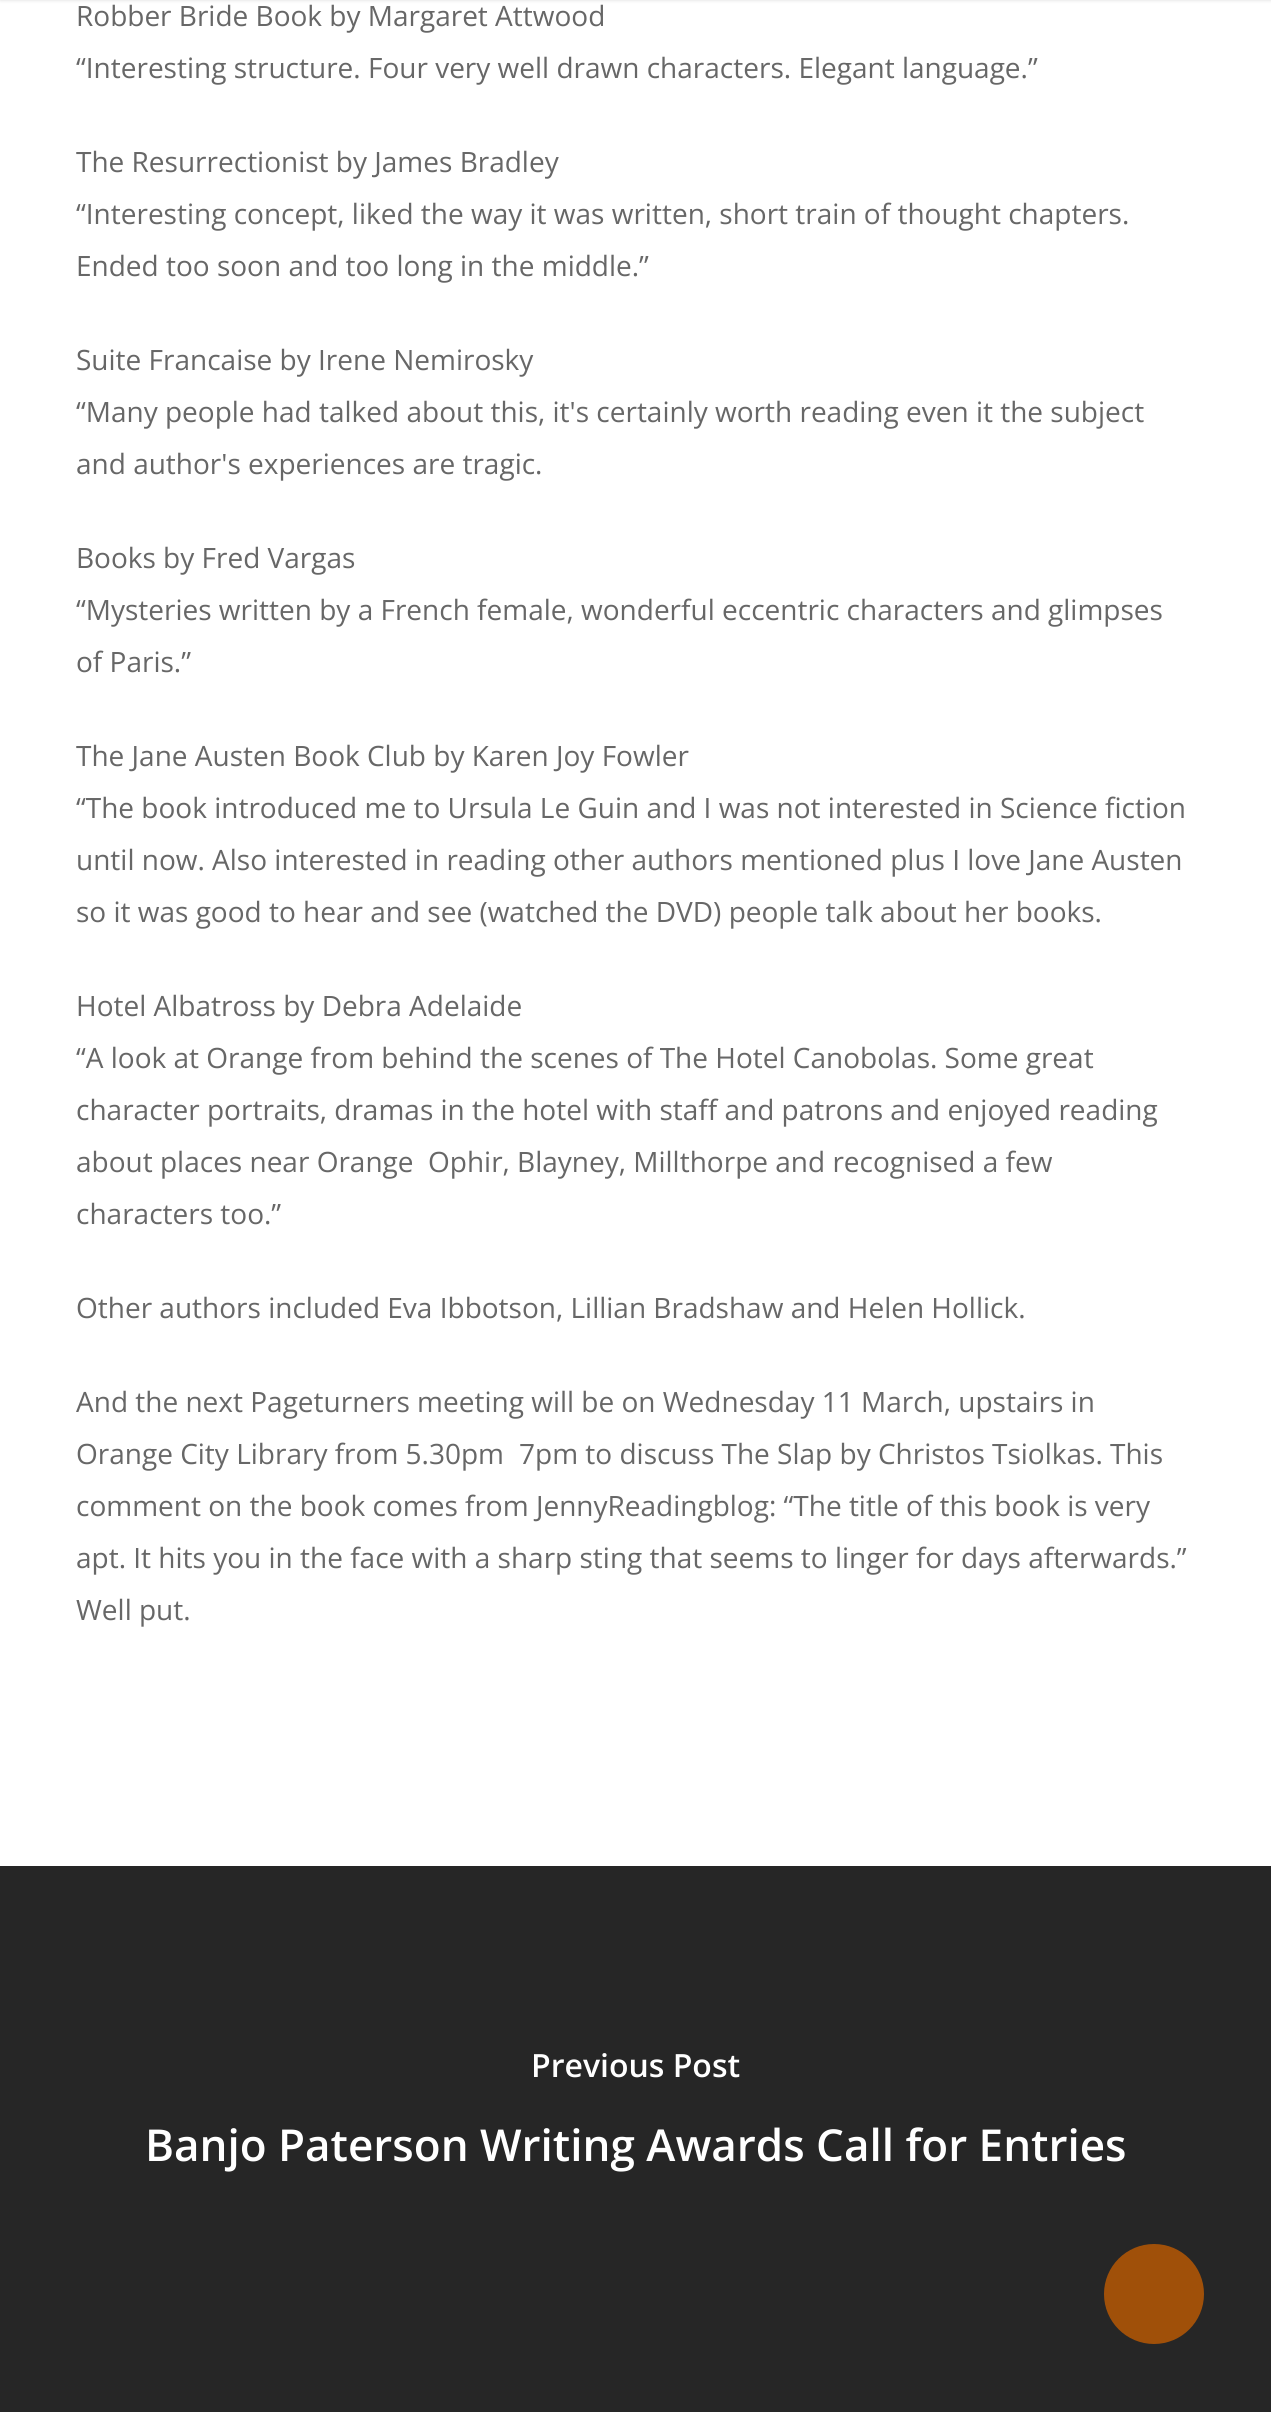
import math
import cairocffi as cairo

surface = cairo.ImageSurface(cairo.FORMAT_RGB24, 1271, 2412)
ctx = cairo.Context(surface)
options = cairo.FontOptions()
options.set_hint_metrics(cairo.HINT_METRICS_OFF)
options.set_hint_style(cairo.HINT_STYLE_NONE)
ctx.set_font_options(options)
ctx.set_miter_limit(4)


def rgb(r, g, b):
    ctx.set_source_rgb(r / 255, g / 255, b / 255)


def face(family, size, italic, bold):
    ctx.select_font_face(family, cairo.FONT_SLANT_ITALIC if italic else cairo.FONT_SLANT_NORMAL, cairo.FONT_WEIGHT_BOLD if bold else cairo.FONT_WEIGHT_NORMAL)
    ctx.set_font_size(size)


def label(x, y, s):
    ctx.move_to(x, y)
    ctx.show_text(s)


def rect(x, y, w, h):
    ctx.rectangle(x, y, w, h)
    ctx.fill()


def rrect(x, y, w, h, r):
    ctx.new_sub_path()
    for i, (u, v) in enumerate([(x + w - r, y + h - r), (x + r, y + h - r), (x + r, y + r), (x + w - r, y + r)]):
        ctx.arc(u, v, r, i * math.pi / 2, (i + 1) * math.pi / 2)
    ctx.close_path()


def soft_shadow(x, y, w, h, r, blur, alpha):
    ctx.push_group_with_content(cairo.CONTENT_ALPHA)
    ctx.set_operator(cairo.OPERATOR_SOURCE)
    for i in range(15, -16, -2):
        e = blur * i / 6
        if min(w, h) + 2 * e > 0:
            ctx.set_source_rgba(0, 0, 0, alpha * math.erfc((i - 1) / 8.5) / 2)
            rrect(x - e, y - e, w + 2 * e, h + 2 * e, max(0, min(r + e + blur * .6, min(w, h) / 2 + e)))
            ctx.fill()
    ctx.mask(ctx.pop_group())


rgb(255, 255, 255)
ctx.paint()
rgb(0, 0, 0)
soft_shadow(0, -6, 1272, 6, 0, 2, 0.14)
face('Open Sans', 28, 0, 0)
rgb(103, 103, 103)
label(76, 26, 'Robber Bride Book by Margaret Attwood')
label(76, 78, '“Interesting structure. Four very well drawn characters. Elegant language.”')
label(76, 172, 'The Resurrectionist by James Bradley')
label(76, 224, '“Interesting concept, liked the way it was written, short train of thought chapters.')
label(76, 276, 'Ended too soon and too long in the middle.”')
label(76, 370, 'Suite Francaise by Irene Nemirosky')
label(76, 422, '“Many people had talked about this, it\'s certainly worth reading even it the subject')
label(76, 474, 'and author\'s experiences are tragic.')
label(76, 568, 'Books by Fred Vargas')
label(76, 620, '“Mysteries written by a French female, wonderful eccentric characters and glimpses')
label(76, 672, 'of Paris.”')
label(76, 766, 'The Jane Austen Book Club by Karen Joy Fowler')
label(76, 818, '“The book introduced me to Ursula Le Guin and I was not interested in Science fiction')
label(76, 870, 'until now. Also interested in reading other authors mentioned plus I love Jane Austen')
label(76, 922, 'so it was good to hear and see (watched the DVD) people talk about her books.')
label(76, 1016, 'Hotel Albatross by Debra Adelaide')
label(76, 1068, '“A look at Orange from behind the scenes of The Hotel Canobolas. Some great')
label(76, 1120, 'character portraits, dramas in the hotel with staff and patrons and enjoyed reading')
label(76, 1172, 'about places near Orange')
label(428, 1172, 'Ophir, Blayney, Millthorpe and recognised a few')
label(76, 1224, 'characters too.”')
label(76, 1318, 'Other authors included Eva Ibbotson, Lillian Bradshaw and Helen Hollick.')
label(76, 1412, 'And the next Pageturners meeting will be on Wednesday 11 March, upstairs in')
label(76, 1464, 'Orange City Library from 5.30pm')
label(519, 1464, '7pm to discuss The Slap by Christos Tsiolkas. This')
label(76, 1516, 'comment on the book comes from JennyReadingblog: “The title of this book is very')
label(76, 1568, 'apt. It hits you in the face with a sharp sting that seems to linger for days afterwards.”')
label(76, 1620, 'Well put.')
rgb(38, 38, 38)
rect(0, 1866, 1271, 546)
face('Open Sans SemiBold', 32, 0, 0)
rgb(255, 255, 255)
label(531, 2077, 'Previous Post')
face('Open Sans SemiBold', 44, 0, 0)
label(145, 2161, 'Banjo Paterson Writing Awards Call for Entries')
rgb(160, 80, 9)
ctx.new_path()
ctx.arc(1154, 2294, 50, 0, 2 * math.pi)
ctx.fill()
surface.write_to_png('render.png')
